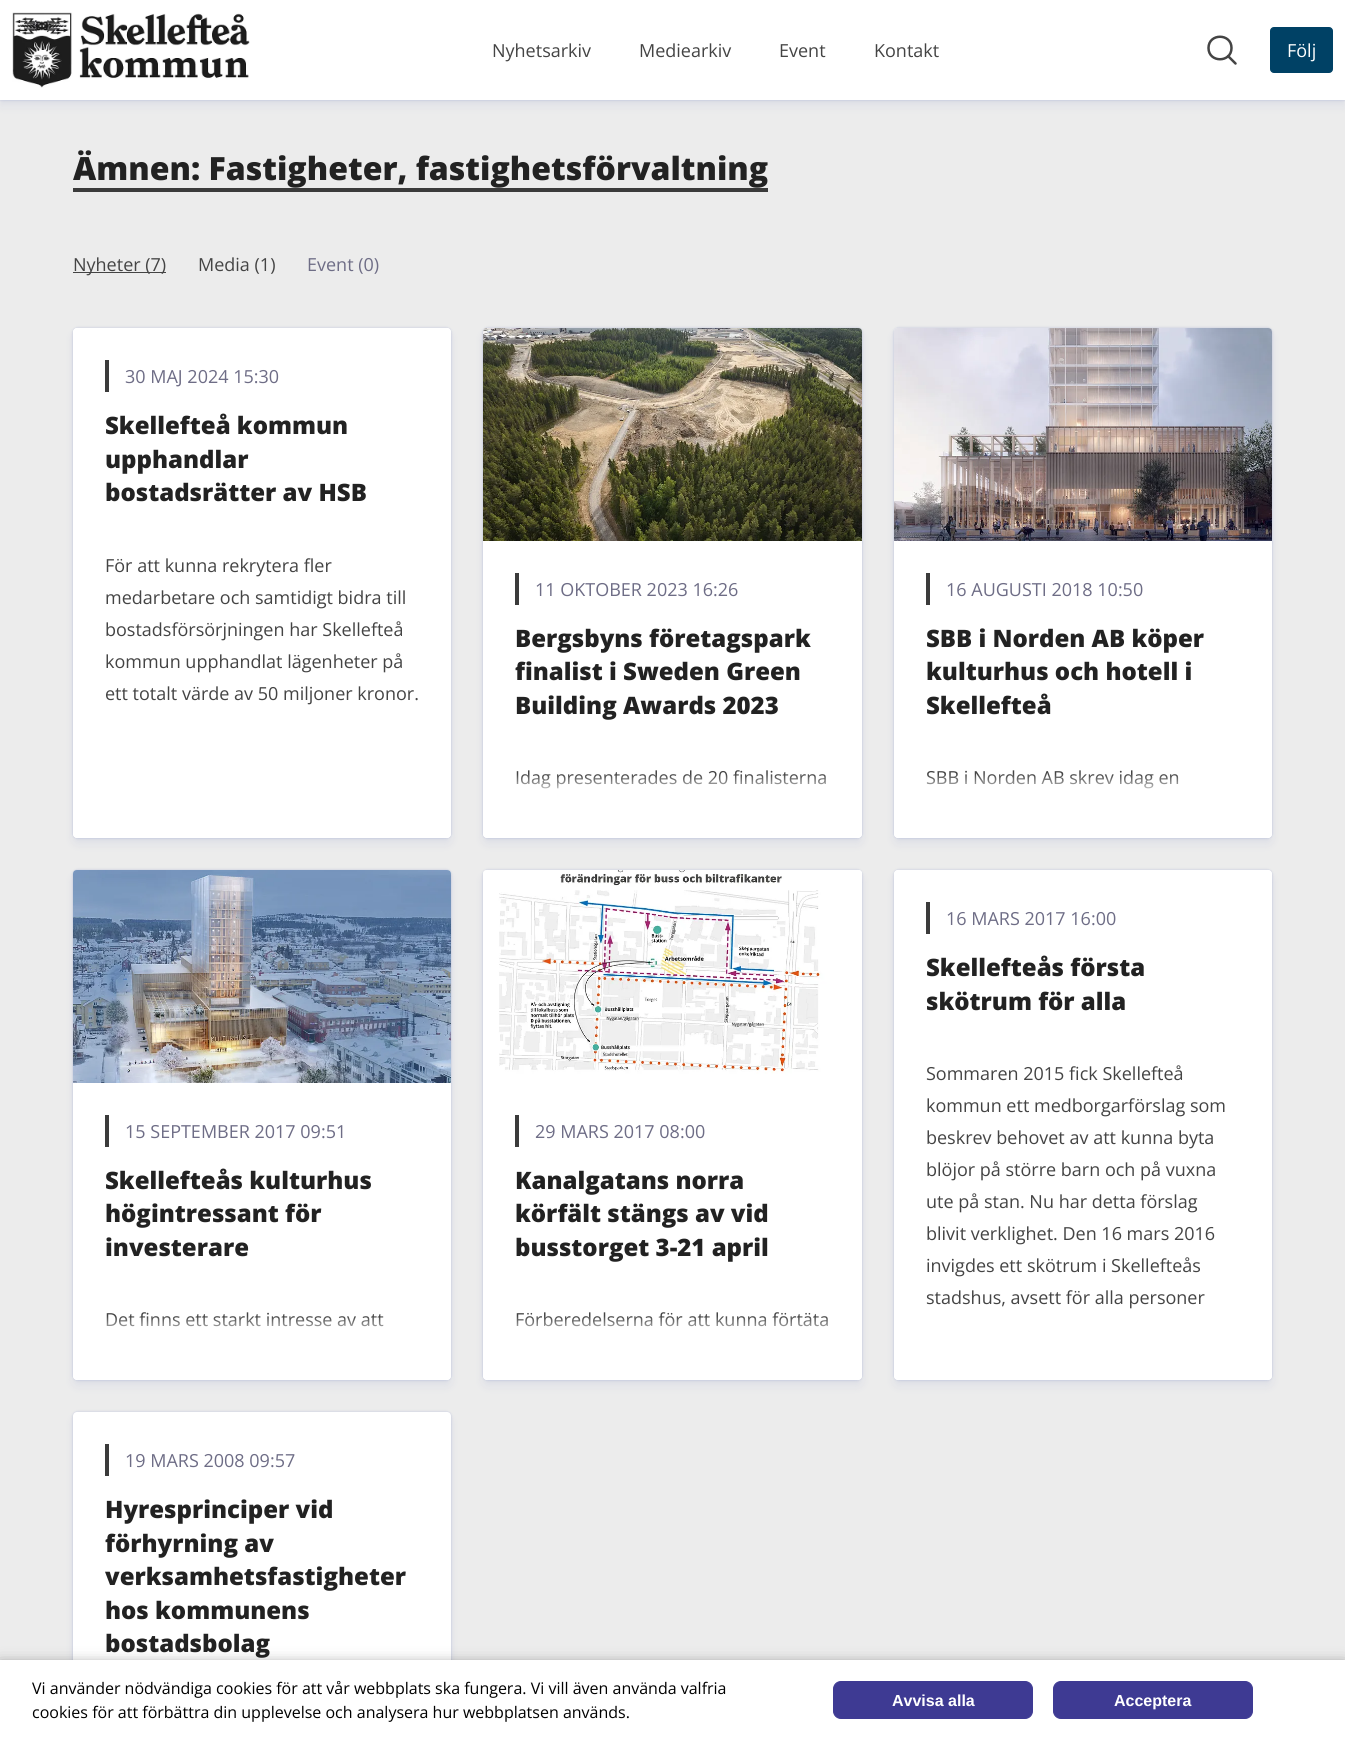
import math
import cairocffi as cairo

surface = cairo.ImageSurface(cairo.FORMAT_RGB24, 1345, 1740)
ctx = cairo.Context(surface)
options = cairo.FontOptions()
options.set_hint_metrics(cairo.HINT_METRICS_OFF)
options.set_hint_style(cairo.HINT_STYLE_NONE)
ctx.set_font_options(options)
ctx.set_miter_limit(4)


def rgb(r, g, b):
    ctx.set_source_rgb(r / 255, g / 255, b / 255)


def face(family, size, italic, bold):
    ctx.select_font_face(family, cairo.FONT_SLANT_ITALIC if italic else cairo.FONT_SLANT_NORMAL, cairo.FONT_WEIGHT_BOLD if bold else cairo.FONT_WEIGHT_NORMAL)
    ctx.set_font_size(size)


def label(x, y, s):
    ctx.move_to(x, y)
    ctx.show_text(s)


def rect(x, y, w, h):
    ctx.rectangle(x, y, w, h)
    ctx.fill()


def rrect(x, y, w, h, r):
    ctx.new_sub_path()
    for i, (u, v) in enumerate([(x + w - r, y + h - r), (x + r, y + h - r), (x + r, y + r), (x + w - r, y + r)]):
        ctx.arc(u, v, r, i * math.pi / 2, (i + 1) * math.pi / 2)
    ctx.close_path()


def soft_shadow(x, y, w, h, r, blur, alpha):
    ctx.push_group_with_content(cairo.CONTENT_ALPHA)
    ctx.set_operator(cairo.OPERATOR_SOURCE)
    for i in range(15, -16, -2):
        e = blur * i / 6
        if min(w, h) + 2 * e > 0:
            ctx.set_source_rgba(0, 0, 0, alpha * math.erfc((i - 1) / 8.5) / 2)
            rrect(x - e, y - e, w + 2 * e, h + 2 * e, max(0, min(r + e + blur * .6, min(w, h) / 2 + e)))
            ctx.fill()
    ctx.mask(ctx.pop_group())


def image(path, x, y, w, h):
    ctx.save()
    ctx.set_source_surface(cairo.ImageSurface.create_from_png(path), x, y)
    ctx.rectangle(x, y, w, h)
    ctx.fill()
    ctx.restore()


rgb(236, 236, 236)
ctx.paint()
rgb(49, 73, 164)
soft_shadow(0, 0, 1345, 100, 0, 1, 0.14)
soft_shadow(0, 0, 1345, 100, 0, 1.5, 0.1)
soft_shadow(0, 6, 1345, 100, 0, 5, 0.08)
rgb(255, 255, 255)
rect(0, 0, 1345, 100)
image('image0.png', 12, 12, 238, 76)
face('Open Sans', 18, 0, 0)
rgb(68, 68, 68)
label(492, 57, 'Nyhetsarkiv')
label(639, 57, 'Mediearkiv')
label(779, 57, 'Event')
label(874, 57, 'Kontakt')
ctx.new_path()
ctx.move_to(1231.5, 48)
ctx.curve_to(1231.5, 63, 1208.5, 63, 1208.5, 48)
ctx.curve_to(1208.5, 33, 1231.5, 33, 1231.5, 48)
ctx.close_path()
ctx.move_to(1235.5, 63.5)
ctx.line_to(1228, 56)
ctx.set_line_width(2.5)
ctx.set_line_cap(cairo.LINE_CAP_ROUND)
ctx.stroke()
rgb(0, 65, 101)
rrect(1270.5, 27.5, 62, 45, 3.5)
ctx.fill_preserve()
ctx.set_line_width(1)
ctx.set_line_cap(cairo.LINE_CAP_BUTT)
ctx.stroke()
rgb(255, 255, 255)
label(1287, 57, 'Följ')
rgb(59, 59, 59)
rect(73, 188, 695, 4)
face('Open Sans ExtraBold', 32, 0, 0)
rgb(34, 34, 34)
label(73, 180, 'Ämnen: Fastigheter, fastighetsförvaltning')
rgb(68, 68, 68)
rect(73, 272, 93, 1)
face('Open Sans', 18, 0, 0)
label(73, 271, 'Nyheter (7)')
label(198, 271, 'Media (1)')
rgb(110, 109, 134)
label(307, 271, 'Event (0)')
rgb(49, 73, 164)
soft_shadow(73, 328, 378, 510, 4, 1, 0.14)
soft_shadow(73, 328, 378, 510, 4, 1.5, 0.1)
soft_shadow(73, 334, 378, 510, 4, 5, 0.08)
rgb(255, 255, 255)
rrect(73, 328, 378, 510, 4)
ctx.fill()
ctx.new_path()
ctx.move_to(77, 328)
ctx.line_to(447, 328)
ctx.curve_to(449, 328, 451, 330, 451, 332)
ctx.line_to(451, 741)
ctx.line_to(73, 741)
ctx.line_to(73, 332)
ctx.curve_to(73, 330, 75, 328, 77, 328)
ctx.close_path()
ctx.fill()
rgb(59, 59, 59)
rect(105, 360, 4, 32)
rgb(110, 109, 134)
label(125, 383, '30 MAJ 2024 15:30')
face('Open Sans ExtraBold', 24, 0, 0)
rgb(34, 34, 34)
label(105, 434, 'Skellefteå kommun')
label(105, 468, 'upphandlar')
label(105, 501, 'bostadsrätter av HSB')
face('Open Sans', 18, 0, 0)
rgb(68, 68, 68)
label(105, 572, 'För att kunna rekrytera fler')
label(105, 604, 'medarbetare och samtidigt bidra till')
label(105, 636, 'bostadsförsörjningen har Skellefteå')
label(105, 668, 'kommun upphandlat lägenheter på')
label(105, 700, 'ett totalt värde av 50 miljoner kronor.')
gradient = cairo.LinearGradient(262, 774, 262, 838)
gradient.add_color_stop_rgba(0, 1, 1, 1, 0)
gradient.add_color_stop_rgba(0.25, 1, 1, 1, 0.7)
gradient.add_color_stop_rgba(0.5, 1, 1, 1, 1)
ctx.set_source(gradient)
ctx.new_path()
ctx.move_to(73, 774)
ctx.line_to(451, 774)
ctx.line_to(451, 834)
ctx.curve_to(451, 836, 449, 838, 447, 838)
ctx.line_to(77, 838)
ctx.curve_to(75, 838, 73, 836, 73, 834)
ctx.close_path()
ctx.fill()
rgb(49, 73, 164)
soft_shadow(483, 328, 379, 510, 4, 1, 0.14)
soft_shadow(483, 328, 379, 510, 4, 1.5, 0.1)
soft_shadow(483, 334, 379, 510, 4, 5, 0.08)
rgb(255, 255, 255)
rrect(483, 328, 379, 510, 4)
ctx.fill()
image('image1.png', 483, 328, 379, 4)
image('image2.png', 483, 328, 379, 213)
rgb(59, 59, 59)
rect(515, 573, 4, 32)
rgb(110, 109, 134)
label(535, 596, '11 OKTOBER 2023 16:26')
face('Open Sans ExtraBold', 24, 0, 0)
rgb(34, 34, 34)
label(515, 647, 'Bergsbyns företagspark')
label(515, 680, 'finalist i Sweden Green')
label(515, 714, 'Building Awards 2023')
face('Open Sans', 18, 0, 0)
rgb(68, 68, 68)
label(515, 784, 'Idag presenterades de 20 finalisterna')
gradient = cairo.LinearGradient(673, 774, 673, 838)
gradient.add_color_stop_rgba(0, 1, 1, 1, 0)
gradient.add_color_stop_rgba(0.25, 1, 1, 1, 0.7)
gradient.add_color_stop_rgba(0.5, 1, 1, 1, 1)
ctx.set_source(gradient)
ctx.new_path()
ctx.move_to(483, 774)
ctx.line_to(862, 774)
ctx.line_to(862, 834)
ctx.curve_to(862, 836, 860, 838, 858, 838)
ctx.line_to(487, 838)
ctx.curve_to(485, 838, 483, 836, 483, 834)
ctx.close_path()
ctx.fill()
rgb(49, 73, 164)
soft_shadow(894, 328, 378, 510, 4, 1, 0.14)
soft_shadow(894, 328, 378, 510, 4, 1.5, 0.1)
soft_shadow(894, 334, 378, 510, 4, 5, 0.08)
rgb(255, 255, 255)
rrect(894, 328, 378, 510, 4)
ctx.fill()
image('image3.png', 894, 328, 378, 4)
image('image4.png', 894, 328, 378, 213)
rgb(59, 59, 59)
rect(926, 573, 4, 32)
rgb(110, 109, 134)
label(946, 596, '16 AUGUSTI 2018 10:50')
face('Open Sans ExtraBold', 24, 0, 0)
rgb(34, 34, 34)
label(926, 647, 'SBB i Norden AB köper')
label(926, 680, 'kulturhus och hotell i')
label(926, 714, 'Skellefteå')
face('Open Sans', 18, 0, 0)
rgb(68, 68, 68)
label(926, 784, 'SBB i Norden AB skrev idag en')
gradient = cairo.LinearGradient(1083, 774, 1083, 838)
gradient.add_color_stop_rgba(0, 1, 1, 1, 0)
gradient.add_color_stop_rgba(0.25, 1, 1, 1, 0.7)
gradient.add_color_stop_rgba(0.5, 1, 1, 1, 1)
ctx.set_source(gradient)
ctx.new_path()
ctx.move_to(894, 774)
ctx.line_to(1272, 774)
ctx.line_to(1272, 834)
ctx.curve_to(1272, 836, 1270, 838, 1268, 838)
ctx.line_to(898, 838)
ctx.curve_to(896, 838, 894, 836, 894, 834)
ctx.close_path()
ctx.fill()
rgb(49, 73, 164)
soft_shadow(73, 870, 378, 510, 4, 1, 0.14)
soft_shadow(73, 870, 378, 510, 4, 1.5, 0.1)
soft_shadow(73, 876, 378, 510, 4, 5, 0.08)
rgb(255, 255, 255)
rrect(73, 870, 378, 510, 4)
ctx.fill()
image('image5.png', 73, 870, 378, 4)
image('image6.png', 73, 870, 378, 213)
rgb(59, 59, 59)
rect(105, 1115, 4, 32)
rgb(110, 109, 134)
label(125, 1138, '15 SEPTEMBER 2017 09:51')
face('Open Sans ExtraBold', 24, 0, 0)
rgb(34, 34, 34)
label(105, 1189, 'Skellefteås kulturhus')
label(105, 1222, 'högintressant för')
label(105, 1256, 'investerare')
face('Open Sans', 18, 0, 0)
rgb(68, 68, 68)
label(105, 1326, 'Det finns ett starkt intresse av att')
gradient = cairo.LinearGradient(262, 1316, 262, 1380)
gradient.add_color_stop_rgba(0, 1, 1, 1, 0)
gradient.add_color_stop_rgba(0.25, 1, 1, 1, 0.7)
gradient.add_color_stop_rgba(0.5, 1, 1, 1, 1)
ctx.set_source(gradient)
ctx.new_path()
ctx.move_to(73, 1316)
ctx.line_to(451, 1316)
ctx.line_to(451, 1376)
ctx.curve_to(451, 1378, 449, 1380, 447, 1380)
ctx.line_to(77, 1380)
ctx.curve_to(75, 1380, 73, 1378, 73, 1376)
ctx.close_path()
ctx.fill()
rgb(49, 73, 164)
soft_shadow(483, 870, 379, 510, 4, 1, 0.14)
soft_shadow(483, 870, 379, 510, 4, 1.5, 0.1)
soft_shadow(483, 876, 379, 510, 4, 5, 0.08)
rgb(255, 255, 255)
rrect(483, 870, 379, 510, 4)
ctx.fill()
image('image1.png', 483, 870, 379, 4)
image('image7.png', 483, 870, 379, 213)
rgb(59, 59, 59)
rect(515, 1115, 4, 32)
rgb(110, 109, 134)
label(535, 1138, '29 MARS 2017 08:00')
face('Open Sans ExtraBold', 24, 0, 0)
rgb(34, 34, 34)
label(515, 1189, 'Kanalgatans norra')
label(515, 1222, 'körfält stängs av vid')
label(515, 1256, 'busstorget 3-21 april')
face('Open Sans', 18, 0, 0)
rgb(68, 68, 68)
label(515, 1326, 'Förberedelserna för att kunna förtäta')
gradient = cairo.LinearGradient(673, 1316, 673, 1380)
gradient.add_color_stop_rgba(0, 1, 1, 1, 0)
gradient.add_color_stop_rgba(0.25, 1, 1, 1, 0.7)
gradient.add_color_stop_rgba(0.5, 1, 1, 1, 1)
ctx.set_source(gradient)
ctx.new_path()
ctx.move_to(483, 1316)
ctx.line_to(862, 1316)
ctx.line_to(862, 1376)
ctx.curve_to(862, 1378, 860, 1380, 858, 1380)
ctx.line_to(487, 1380)
ctx.curve_to(485, 1380, 483, 1378, 483, 1376)
ctx.close_path()
ctx.fill()
rgb(49, 73, 164)
soft_shadow(894, 870, 378, 510, 4, 1, 0.14)
soft_shadow(894, 870, 378, 510, 4, 1.5, 0.1)
soft_shadow(894, 876, 378, 510, 4, 5, 0.08)
rgb(255, 255, 255)
rrect(894, 870, 378, 510, 4)
ctx.fill()
ctx.save()
rrect(894, 870, 378, 510, 4)
ctx.clip()
ctx.new_path()
ctx.move_to(898, 870)
ctx.line_to(1268, 870)
ctx.curve_to(1270, 870, 1272, 872, 1272, 874)
ctx.line_to(1272, 1377)
ctx.line_to(894, 1377)
ctx.line_to(894, 874)
ctx.curve_to(894, 872, 896, 870, 898, 870)
ctx.close_path()
ctx.fill()
ctx.restore()
rgb(59, 59, 59)
rect(926, 902, 4, 32)
rgb(110, 109, 134)
label(946, 925, '16 MARS 2017 16:00')
face('Open Sans ExtraBold', 24, 0, 0)
rgb(34, 34, 34)
label(926, 976, 'Skellefteås första')
label(926, 1010, 'skötrum för alla')
face('Open Sans', 18, 0, 0)
rgb(68, 68, 68)
label(926, 1080, 'Sommaren 2015 fick Skellefteå')
label(926, 1112, 'kommun ett medborgarförslag som')
label(926, 1144, 'beskrev behovet av att kunna byta')
label(926, 1176, 'blöjor på större barn och på vuxna')
label(926, 1208, 'ute på stan. Nu har detta förslag')
label(926, 1240, 'blivit verklighet. Den 16 mars 2016')
label(926, 1272, 'invigdes ett skötrum i Skellefteås')
label(926, 1304, 'stadshus, avsett för alla personer')
gradient = cairo.LinearGradient(1083, 1316, 1083, 1380)
gradient.add_color_stop_rgba(0, 1, 1, 1, 0)
gradient.add_color_stop_rgba(0.25, 1, 1, 1, 0.7)
gradient.add_color_stop_rgba(0.5, 1, 1, 1, 1)
ctx.set_source(gradient)
ctx.new_path()
ctx.move_to(894, 1316)
ctx.line_to(1272, 1316)
ctx.line_to(1272, 1376)
ctx.curve_to(1272, 1378, 1270, 1380, 1268, 1380)
ctx.line_to(898, 1380)
ctx.curve_to(896, 1380, 894, 1378, 894, 1376)
ctx.close_path()
ctx.fill()
rgb(49, 73, 164)
soft_shadow(73, 1412, 378, 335, 4, 1, 0.14)
soft_shadow(73, 1412, 378, 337, 4, 1.5, 0.1)
soft_shadow(73, 1418, 378, 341, 4, 5, 0.08)
rgb(255, 255, 255)
rrect(73, 1412, 378, 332, 4)
ctx.fill()
rgb(59, 59, 59)
rect(105, 1444, 4, 32)
rgb(110, 109, 134)
label(125, 1467, '19 MARS 2008 09:57')
face('Open Sans ExtraBold', 24, 0, 0)
rgb(34, 34, 34)
label(105, 1518, 'Hyresprinciper vid')
label(105, 1552, 'förhyrning av')
label(105, 1585, 'verksamhetsfastigheter')
label(105, 1619, 'hos kommunens')
label(105, 1652, 'bostadsbolag')
rgb(0, 0, 0)
soft_shadow(0, 1665, 1345, 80, 0, 7.5, 0.5)
rgb(255, 255, 255)
rect(0, 1660, 1345, 80)
face('Open Sans', 16, 0, 0)
rgb(0, 0, 0)
label(32, 1694, 'Vi använder nödvändiga cookies för att vår webbplats ska fungera. Vi vill även använda valfria')
label(32, 1718, 'cookies för att förbättra din upplevelse och analysera hur webbplatsen används.')
rgb(62, 58, 147)
rrect(833.5, 1681.5, 199, 37, 7.5)
ctx.fill_preserve()
ctx.stroke()
face('Liberation Sans', 16, 0, 1)
rgb(255, 255, 255)
label(892, 1706, 'Avvisa alla')
rgb(62, 58, 147)
rrect(1053.5, 1681.5, 199, 37, 7.5)
ctx.fill_preserve()
ctx.stroke()
rgb(255, 255, 255)
label(1114, 1706, 'Acceptera')
surface.write_to_png('render.png')
